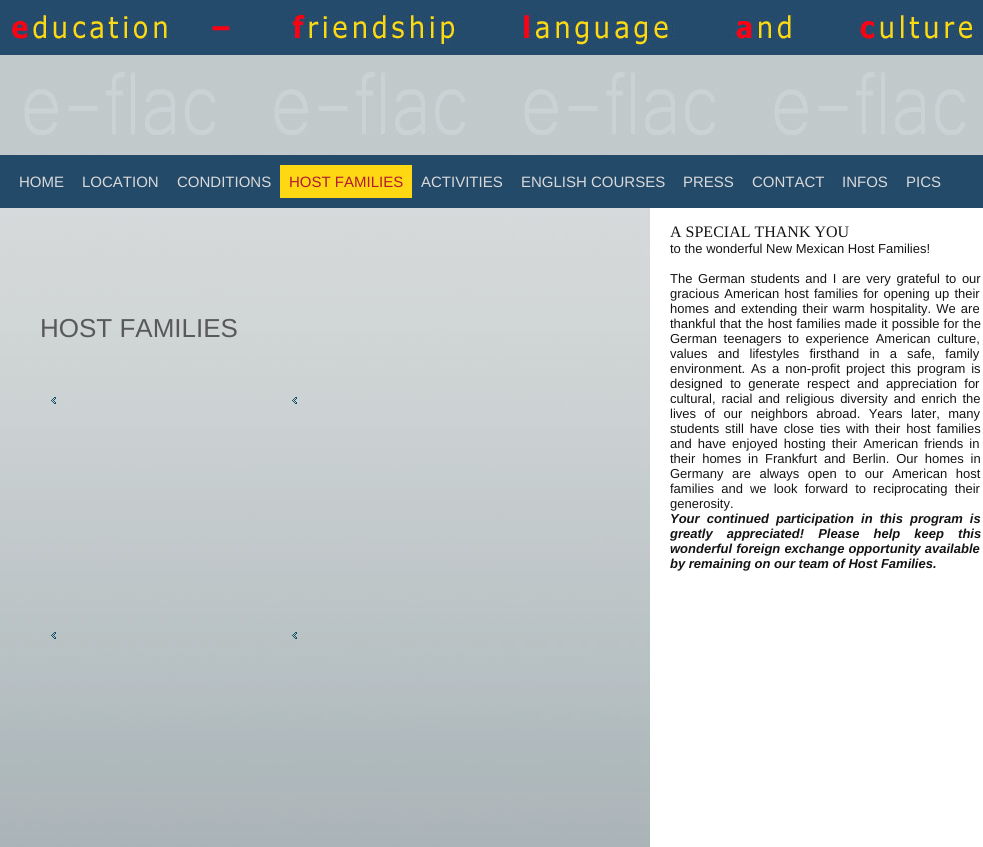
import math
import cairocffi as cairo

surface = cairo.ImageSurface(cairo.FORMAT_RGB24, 983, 847)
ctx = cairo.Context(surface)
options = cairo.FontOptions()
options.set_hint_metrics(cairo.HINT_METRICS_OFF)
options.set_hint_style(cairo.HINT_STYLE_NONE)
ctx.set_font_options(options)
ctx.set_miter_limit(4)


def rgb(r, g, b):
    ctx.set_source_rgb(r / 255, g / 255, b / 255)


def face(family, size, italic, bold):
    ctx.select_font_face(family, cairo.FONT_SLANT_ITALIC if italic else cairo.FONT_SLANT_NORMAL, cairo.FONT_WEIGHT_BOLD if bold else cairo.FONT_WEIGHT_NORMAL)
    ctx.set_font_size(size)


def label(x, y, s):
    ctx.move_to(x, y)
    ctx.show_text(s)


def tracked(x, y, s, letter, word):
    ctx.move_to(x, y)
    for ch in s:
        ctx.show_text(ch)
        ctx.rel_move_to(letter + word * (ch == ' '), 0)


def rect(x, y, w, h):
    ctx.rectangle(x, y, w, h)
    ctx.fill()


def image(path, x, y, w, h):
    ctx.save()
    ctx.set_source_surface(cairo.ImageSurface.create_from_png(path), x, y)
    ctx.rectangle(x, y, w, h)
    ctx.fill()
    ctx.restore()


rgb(255, 255, 255)
ctx.paint()
image('image0.png', 0, 55, 983, 792)
image('image1.png', 0, 0, 983, 55)
ctx.set_source_rgba(0.643, 0.71, 0.737, 0.2)
rect(0, 208, 650, 584)
rgb(36, 74, 106)
rect(0, 155, 983, 53)
face('Liberation Sans', 15, 0, 0)
rgb(217, 217, 217)
label(19, 187, 'HOME')
label(82, 187, 'LOCATION')
label(177, 187, 'CONDITIONS')
rgb(255, 216, 20)
rect(280, 165, 132, 33)
rgb(179, 26, 48)
label(289, 187, 'HOST FAMILIES')
rgb(217, 217, 217)
label(421, 187, 'ACTIVITIES')
label(521, 187, 'ENGLISH COURSES')
label(683, 187, 'PRESS')
label(752, 187, 'CONTACT')
label(842, 187, 'INFOS')
label(906, 187, 'PICS')
face('Liberation Sans', 26, 0, 0)
rgb(89, 89, 89)
label(40, 337, 'HOST FAMILIES')
image('image2.png', 51, 397, 5, 7)
image('image3.png', 292, 397, 5, 7)
image('image4.png', 51, 632, 5, 7)
image('image5.png', 292, 632, 5, 7)
rgb(255, 255, 255)
rect(650, 208, 333, 639)
face('Liberation Serif', 16, 0, 0)
rgb(20, 20, 20)
label(670, 237, 'A SPECIAL THANK YOU')
face('Liberation Sans', 13, 0, 0)
label(670, 253, 'to the wonderful New Mexican Host Families!')
tracked(670, 283, 'The German students and I are very grateful to our', 0, 2)
tracked(670, 298, 'gracious American host families for opening up their', 0, 1.5)
tracked(670, 313, 'homes and extending their warm hospitality. We are', 0, 1.5)
tracked(670, 328, 'thankful that the host families made it possible for the', 0, 0.5)
tracked(670, 343, 'German teenagers to experience American culture,', 0, 3)
tracked(670, 358, 'values and lifestyles firsthand in a safe, family', 0, 6.5)
tracked(670, 373, 'environment. As a non-profit project this program is', 0, 2.25)
tracked(670, 388, 'designed to generate respect and appreciation for', 0, 3.75)
tracked(670, 403, 'cultural, racial and religious diversity and enrich the', 0, 2.25)
tracked(670, 418, 'lives of our neighbors abroad. Years later, many', 0, 4.75)
tracked(670, 433, 'students still have close ties with their host families', 0, 2.25)
tracked(670, 448, 'and have enjoyed hosting their American friends in', 0, 2.5)
tracked(670, 463, 'their homes in Frankfurt and Berlin. Our homes in', 0, 3.25)
tracked(670, 478, 'Germany are always open to our American host', 0, 5)
tracked(670, 493, 'families and we look forward to reciprocating their', 0, 3.5)
label(670, 508, 'generosity.')
face('Liberation Sans', 13, 1, 1)
tracked(670, 523, 'Your continued participation in this program is', 0, 3.5)
tracked(670, 538, 'greatly appreciated! Please help keep this', 0, 10.5)
tracked(670, 553, 'wonderful foreign exchange opportunity available', 0, 0.5)
label(670, 568, 'by remaining on our team of Host Families.')
surface.write_to_png('render.png')
